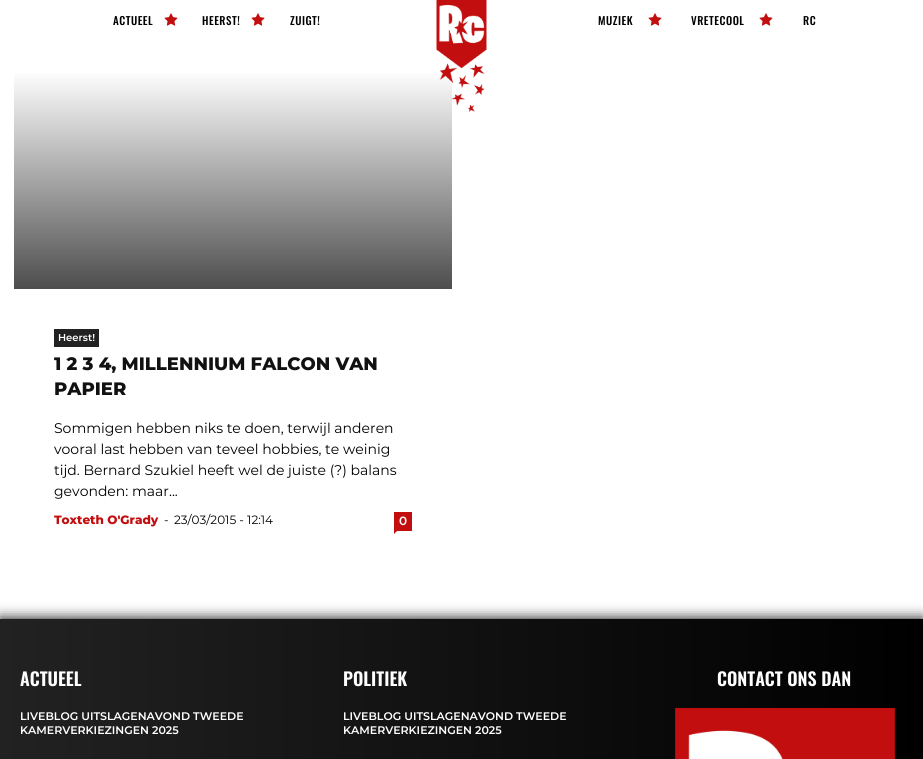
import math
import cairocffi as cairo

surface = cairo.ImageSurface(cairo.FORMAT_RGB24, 923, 759)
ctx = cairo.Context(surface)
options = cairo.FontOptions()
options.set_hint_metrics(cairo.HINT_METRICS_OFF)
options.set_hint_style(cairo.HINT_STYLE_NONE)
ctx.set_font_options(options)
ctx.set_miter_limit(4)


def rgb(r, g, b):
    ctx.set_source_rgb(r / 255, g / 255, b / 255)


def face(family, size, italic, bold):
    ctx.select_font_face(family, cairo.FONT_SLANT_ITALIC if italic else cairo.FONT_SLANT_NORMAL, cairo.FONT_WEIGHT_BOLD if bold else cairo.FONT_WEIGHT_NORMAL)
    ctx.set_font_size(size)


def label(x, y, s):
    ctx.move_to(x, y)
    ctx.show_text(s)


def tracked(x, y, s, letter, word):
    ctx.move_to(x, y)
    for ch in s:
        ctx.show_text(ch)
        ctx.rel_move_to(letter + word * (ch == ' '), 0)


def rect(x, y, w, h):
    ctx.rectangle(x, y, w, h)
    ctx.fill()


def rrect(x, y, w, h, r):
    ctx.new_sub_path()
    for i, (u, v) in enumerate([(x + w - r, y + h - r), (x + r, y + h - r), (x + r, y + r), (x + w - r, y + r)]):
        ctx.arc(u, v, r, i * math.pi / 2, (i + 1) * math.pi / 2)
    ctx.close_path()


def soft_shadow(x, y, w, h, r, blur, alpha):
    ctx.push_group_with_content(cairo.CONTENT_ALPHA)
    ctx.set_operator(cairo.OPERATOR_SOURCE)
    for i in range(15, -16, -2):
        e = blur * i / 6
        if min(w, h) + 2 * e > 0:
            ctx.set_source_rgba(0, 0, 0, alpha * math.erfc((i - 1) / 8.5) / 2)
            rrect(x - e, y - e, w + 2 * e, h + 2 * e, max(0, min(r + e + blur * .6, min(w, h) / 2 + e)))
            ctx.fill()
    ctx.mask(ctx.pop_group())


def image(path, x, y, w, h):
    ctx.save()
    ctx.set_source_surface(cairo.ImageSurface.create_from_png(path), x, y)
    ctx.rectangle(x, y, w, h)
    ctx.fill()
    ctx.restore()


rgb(255, 255, 255)
ctx.paint()
face('Oswald Medium', 11, 0, 0)
rgb(0, 0, 0)
tracked(113, 25, 'ACTUEEL', 0.5, 0)
image('image0.png', 164, 13, 14, 13)
tracked(202, 25, 'HEERST!', 0.5, 0)
image('image0.png', 251, 13, 14, 13)
tracked(290, 25, 'ZUIGT!', 0.5, 0)
gradient = cairo.LinearGradient(233, 289, 233, 70)
gradient.add_color_stop_rgba(0, 0.302, 0.302, 0.302, 1)
gradient.add_color_stop_rgba(1, 1, 1, 1, 1)
ctx.set_source(gradient)
rect(14, 73, 438, 216)
image('image1.png', 436, 0, 51, 112)
rgb(0, 0, 0)
tracked(598, 25, 'MUZIEK', 0.5, 0)
image('image0.png', 648, 13, 14, 13)
tracked(691, 25, 'VRETECOOL', 0.5, 0)
image('image0.png', 759, 13, 14, 13)
tracked(803, 25, 'RC', 0.5, 0)
rgb(34, 34, 34)
rect(54, 329, 45, 18)
face('Montserrat SemiBold', 10, 0, 0)
rgb(255, 255, 255)
label(58, 341, 'Heerst!')
face('Montserrat ExtraBold', 18, 0, 0)
rgb(17, 17, 17)
label(54, 370, '1 2 3 4, MILLENNIUM FALCON VAN')
label(54, 395, 'PAPIER')
face('Montserrat', 14, 0, 0)
rgb(0, 0, 0)
label(54, 433, 'Sommigen hebben niks te doen, terwijl anderen')
label(54, 454, 'vooral last hebben van teveel hobbies, te weinig')
label(54, 475, 'tijd. Bernard Szukiel heeft wel de juiste (?) balans')
label(54, 496, 'gevonden: maar...')
face('Montserrat ExtraBold', 12, 0, 0)
rgb(194, 14, 14)
label(54, 524, 'Toxteth O\'Grady')
face('Montserrat', 12, 0, 0)
rgb(0, 0, 0)
label(164, 524, '-')
label(174, 524, '23/03/2015 - 12:14')
rgb(194, 14, 14)
rect(394, 512, 18, 19)
face('Montserrat SemiBold', 12, 0, 0)
rgb(255, 255, 255)
label(399, 525, '0')
rgb(194, 14, 14)
ctx.new_path()
ctx.move_to(394, 531)
ctx.line_to(397, 531)
ctx.line_to(394, 534)
ctx.close_path()
ctx.fill()
rgb(2, 2, 2)
soft_shadow(0, 619, 923, 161, 0, 7, 1)
gradient = cairo.LinearGradient(923, 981, 0, 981)
gradient.add_color_stop_rgba(0, 0, 0, 0, 1)
gradient.add_color_stop_rgba(1, 0.133, 0.133, 0.133, 1)
ctx.set_source(gradient)
rect(0, 619, 923, 140)
face('Oswald SemiBold', 18, 0, 0)
rgb(255, 255, 255)
label(20, 686, 'ACTUEEL')
face('Montserrat SemiBold', 11, 0, 0)
label(20, 720, 'LIVEBLOG UITSLAGENAVOND TWEEDE')
label(20, 734, 'KAMERVERKIEZINGEN 2025')
face('Oswald SemiBold', 18, 0, 0)
label(343, 686, 'POLITIEK')
face('Montserrat SemiBold', 11, 0, 0)
label(343, 720, 'LIVEBLOG UITSLAGENAVOND TWEEDE')
label(343, 734, 'KAMERVERKIEZINGEN 2025')
face('Oswald SemiBold', 18, 0, 0)
label(717, 686, 'CONTACT ONS DAN')
image('image2.png', 675, 708, 220, 51)
surface.write_to_png('render.png')
